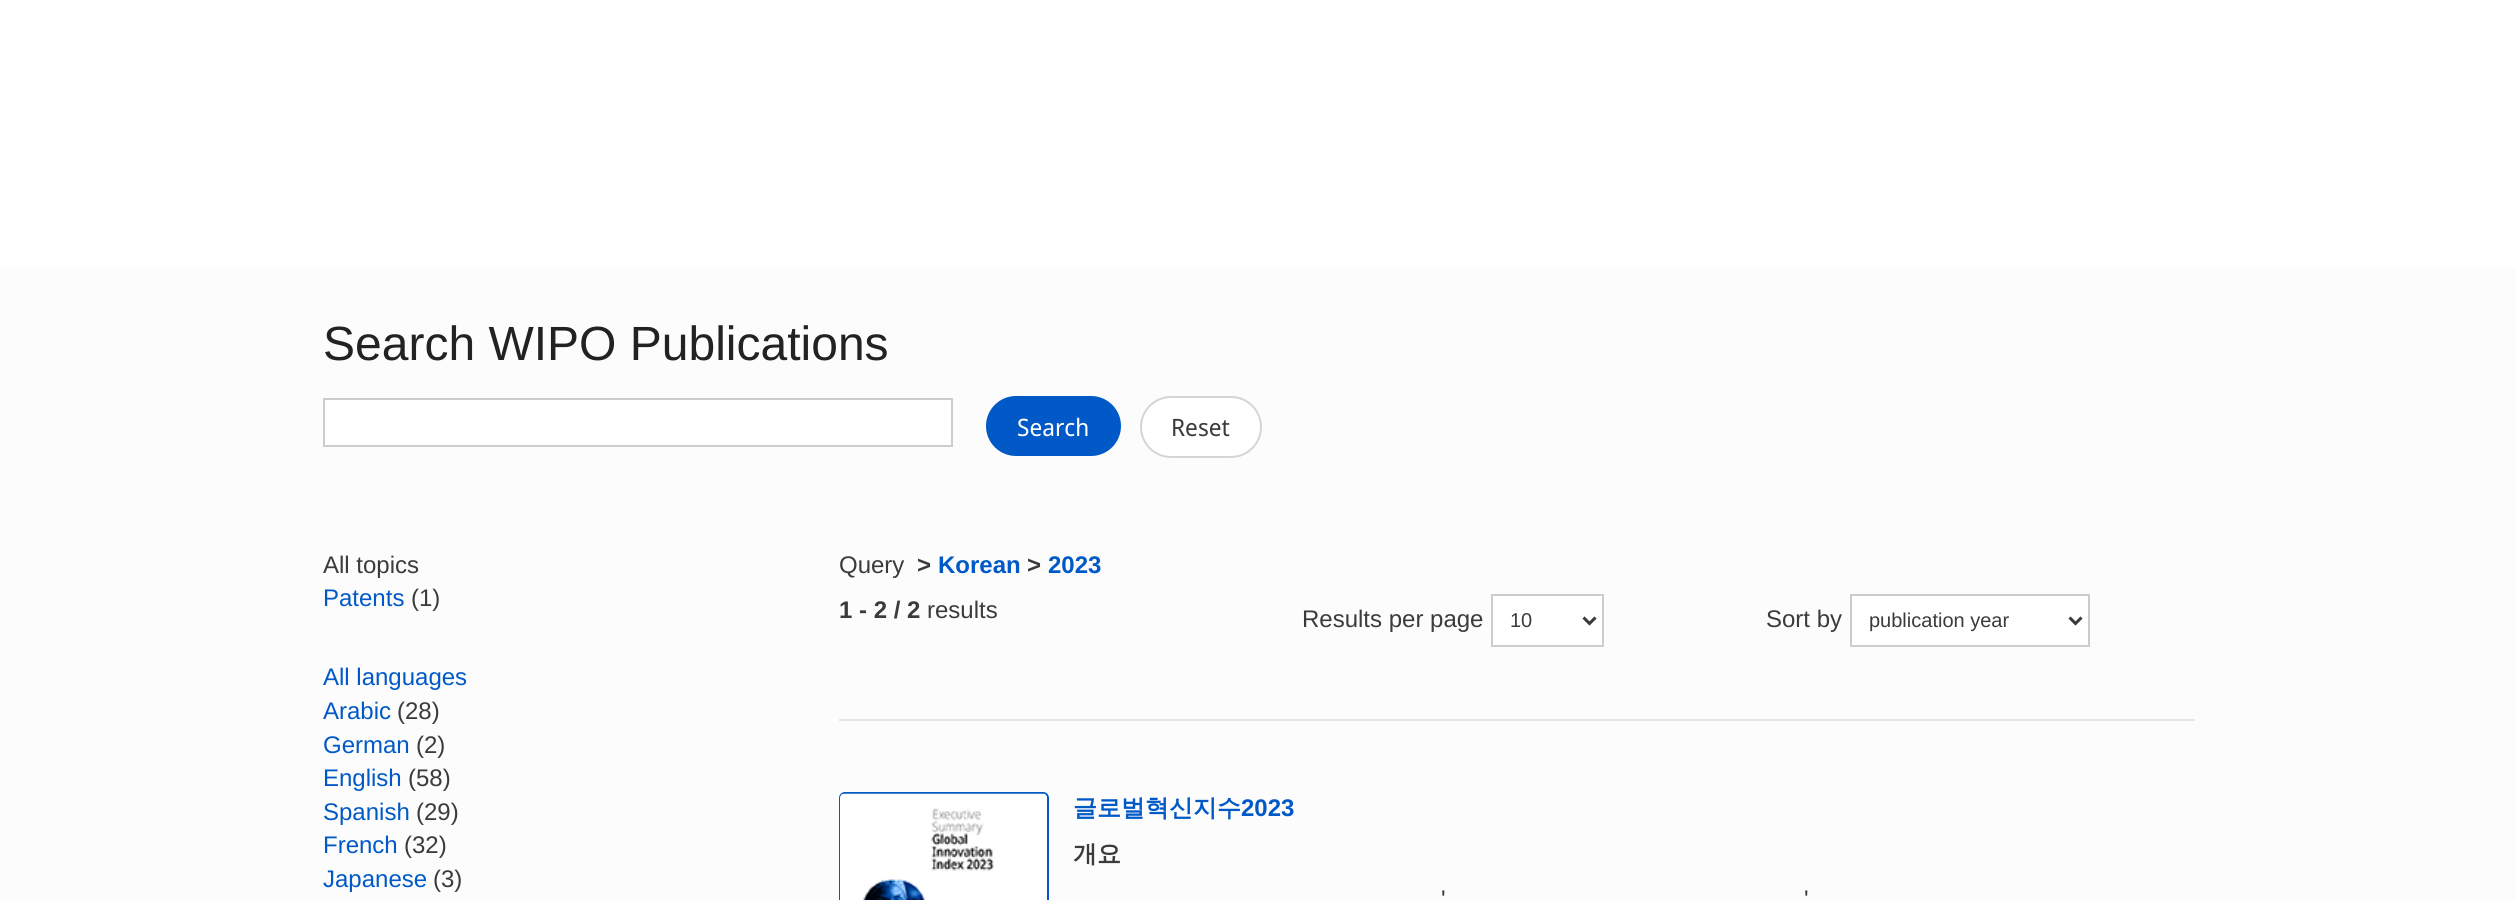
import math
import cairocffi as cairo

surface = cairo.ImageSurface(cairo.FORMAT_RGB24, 2516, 900)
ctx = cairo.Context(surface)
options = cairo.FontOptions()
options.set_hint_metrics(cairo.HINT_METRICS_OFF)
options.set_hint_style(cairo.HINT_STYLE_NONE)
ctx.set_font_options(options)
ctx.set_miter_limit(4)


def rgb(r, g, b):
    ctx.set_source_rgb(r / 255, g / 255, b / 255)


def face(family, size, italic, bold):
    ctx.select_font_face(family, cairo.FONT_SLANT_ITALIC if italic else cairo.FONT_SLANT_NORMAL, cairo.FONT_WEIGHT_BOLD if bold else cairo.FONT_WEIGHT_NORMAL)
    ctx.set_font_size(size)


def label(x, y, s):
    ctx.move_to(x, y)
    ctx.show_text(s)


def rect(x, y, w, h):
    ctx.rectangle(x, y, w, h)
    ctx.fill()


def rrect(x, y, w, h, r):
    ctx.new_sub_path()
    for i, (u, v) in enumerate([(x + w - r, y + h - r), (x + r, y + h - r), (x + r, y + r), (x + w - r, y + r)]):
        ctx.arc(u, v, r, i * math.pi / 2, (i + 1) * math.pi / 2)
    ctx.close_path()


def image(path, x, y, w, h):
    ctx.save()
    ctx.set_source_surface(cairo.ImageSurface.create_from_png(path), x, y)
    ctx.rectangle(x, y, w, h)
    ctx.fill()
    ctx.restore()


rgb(252, 252, 252)
ctx.paint()
rgb(255, 255, 255)
rect(0, 0, 2516, 267)
face('Liberation Sans', 48, 0, 0)
rgb(34, 34, 34)
label(323, 360, 'Search WIPO Publications')
rgb(255, 255, 255)
ctx.rectangle(324, 399, 628, 47)
ctx.fill_preserve()
rgb(204, 204, 204)
ctx.stroke()
rgb(0, 89, 198)
rrect(987, 397, 133, 58, 29)
ctx.fill_preserve()
ctx.stroke()
face('Noto Sans Display', 24, 0, 0)
rgb(255, 255, 255)
label(1017, 436, 'Search')
rrect(1141, 397, 120, 60, 30)
ctx.fill_preserve()
rgb(213, 213, 213)
ctx.stroke()
rgb(59, 59, 59)
label(1171, 436, 'Reset')
face('Liberation Sans', 24, 0, 0)
label(323, 573, 'All topics')
rgb(0, 89, 198)
label(323, 606, 'Patents')
rgb(59, 59, 59)
label(411, 606, '(1)')
rgb(0, 89, 198)
label(323, 685, 'All languages')
label(323, 719, 'Arabic')
rgb(59, 59, 59)
label(397, 719, '(28)')
rgb(0, 89, 198)
label(323, 753, 'German')
rgb(59, 59, 59)
label(416, 753, '(2)')
rgb(0, 89, 198)
label(323, 786, 'English')
rgb(59, 59, 59)
label(408, 786, '(58)')
rgb(0, 89, 198)
label(323, 820, 'Spanish')
rgb(59, 59, 59)
label(416, 820, '(29)')
rgb(0, 89, 198)
label(323, 853, 'French')
rgb(59, 59, 59)
label(404, 853, '(32)')
rgb(0, 89, 198)
label(323, 887, 'Japanese')
rgb(59, 59, 59)
label(433, 887, '(3)')
label(839, 573, 'Query')
face('Liberation Sans', 24, 0, 1)
label(917, 573, '>')
rgb(0, 89, 198)
label(938, 573, 'Korean')
rgb(59, 59, 59)
label(1027, 573, '>')
rgb(0, 89, 198)
label(1048, 573, '2023')
rgb(59, 59, 59)
label(839, 618, '1 - 2 / 2')
face('Liberation Sans', 24, 0, 0)
label(927, 618, 'results')
label(1302, 627, 'Results per page')
rgb(255, 255, 255)
ctx.rectangle(1492, 595, 111, 51)
ctx.fill_preserve()
rgb(204, 204, 204)
ctx.stroke()
ctx.new_path()
ctx.move_to(1583.5, 617.5)
ctx.line_to(1589.5, 623.5)
ctx.line_to(1595.5, 617.5)
rgb(57, 57, 57)
ctx.set_line_width(3)
ctx.stroke()
face('Liberation Sans', 20, 0, 0)
rgb(59, 59, 59)
label(1510, 627, '10')
face('Liberation Sans', 24, 0, 0)
label(1766, 627, 'Sort by')
rgb(255, 255, 255)
ctx.rectangle(1851, 595, 238, 51)
ctx.fill_preserve()
rgb(204, 204, 204)
ctx.set_line_width(2)
ctx.stroke()
ctx.new_path()
ctx.move_to(2069.5, 617.5)
ctx.line_to(2075.5, 623.5)
ctx.line_to(2081.5, 617.5)
rgb(57, 57, 57)
ctx.set_line_width(3)
ctx.stroke()
face('Liberation Sans', 20, 0, 0)
rgb(59, 59, 59)
label(1869, 627, 'publication year')
rgb(230, 230, 230)
rect(839, 719, 1356, 2)
rrect(840, 793, 208, 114, 5)
rgb(0, 89, 198)
ctx.set_line_width(2)
ctx.stroke()
image('image0.png', 840, 793, 207, 107)
face('WenQuanYi Zen Hei', 24, 0, 1)
label(1073, 816, '글로벌혁신지수')
face('Liberation Sans', 24, 0, 1)
label(1241, 816, '2023')
face('WenQuanYi Zen Hei', 24, 0, 1)
rgb(59, 59, 59)
label(1073, 862, '개요')
face('Liberation Sans', 24, 0, 0)
label(1441, 907, '\'')
label(1804, 907, '\'')
surface.write_to_png('render.png')
